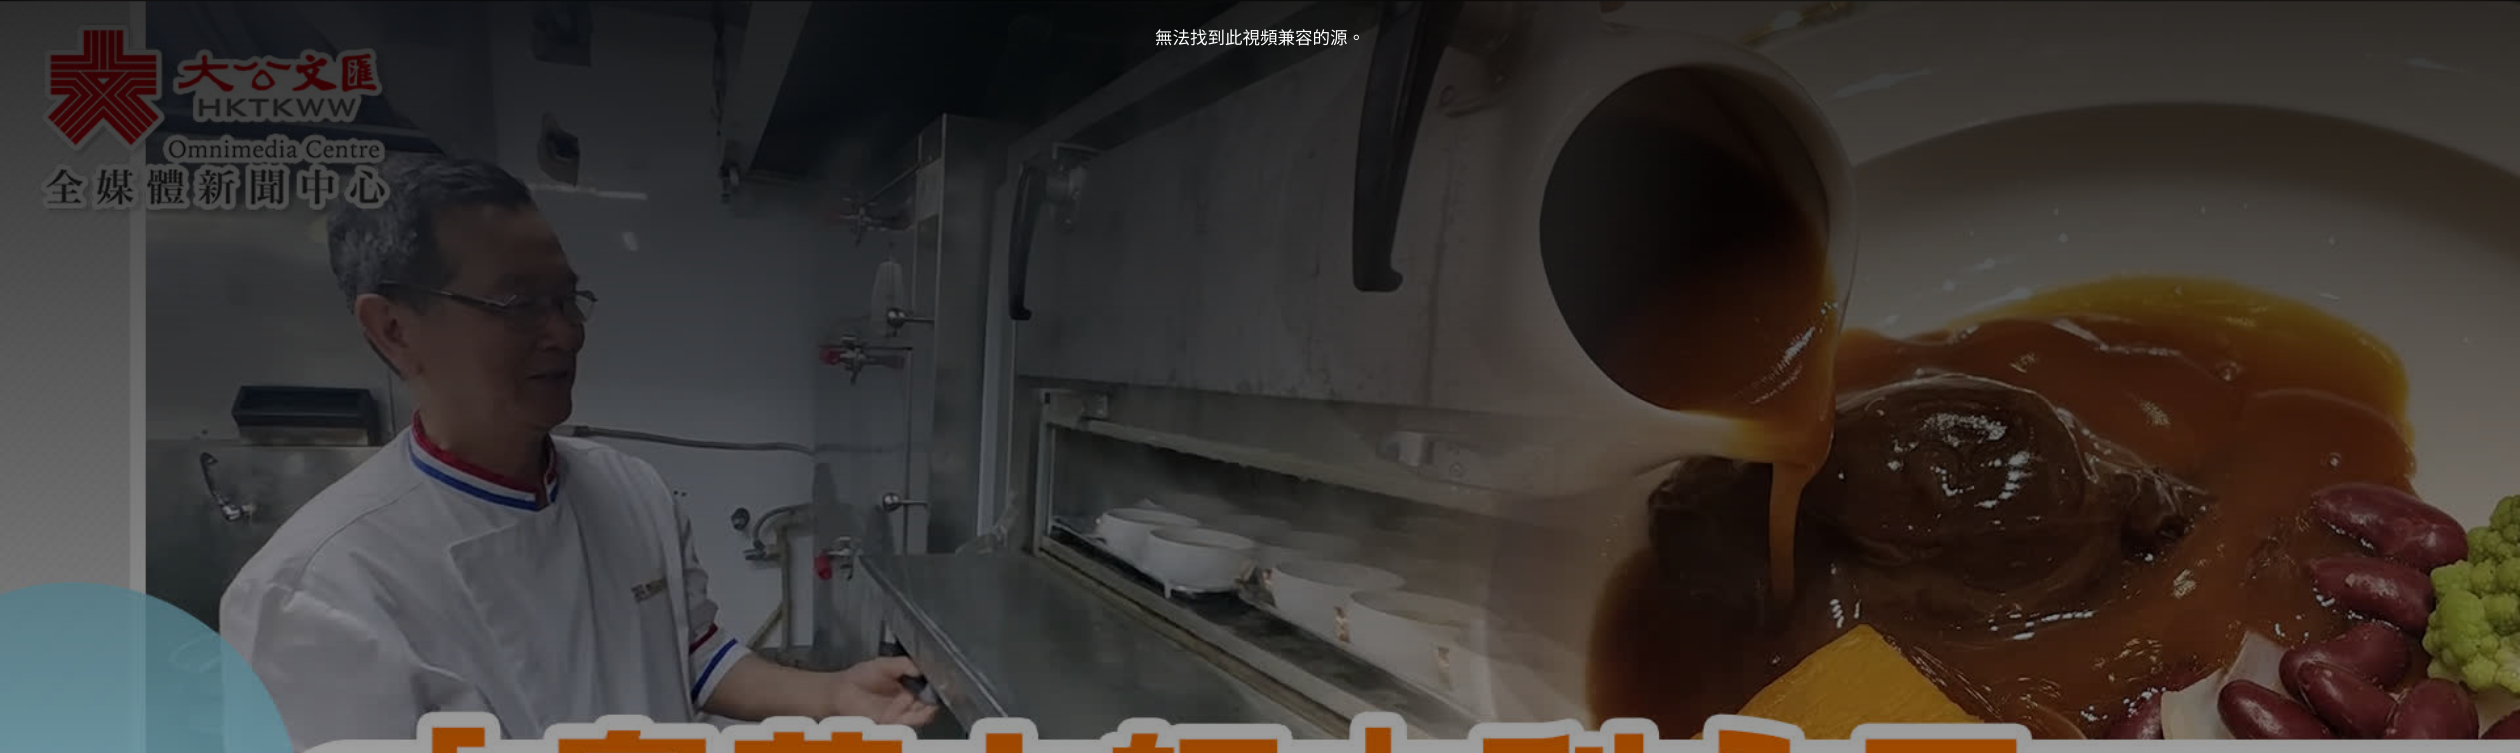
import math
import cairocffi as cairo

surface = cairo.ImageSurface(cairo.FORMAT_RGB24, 2520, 753)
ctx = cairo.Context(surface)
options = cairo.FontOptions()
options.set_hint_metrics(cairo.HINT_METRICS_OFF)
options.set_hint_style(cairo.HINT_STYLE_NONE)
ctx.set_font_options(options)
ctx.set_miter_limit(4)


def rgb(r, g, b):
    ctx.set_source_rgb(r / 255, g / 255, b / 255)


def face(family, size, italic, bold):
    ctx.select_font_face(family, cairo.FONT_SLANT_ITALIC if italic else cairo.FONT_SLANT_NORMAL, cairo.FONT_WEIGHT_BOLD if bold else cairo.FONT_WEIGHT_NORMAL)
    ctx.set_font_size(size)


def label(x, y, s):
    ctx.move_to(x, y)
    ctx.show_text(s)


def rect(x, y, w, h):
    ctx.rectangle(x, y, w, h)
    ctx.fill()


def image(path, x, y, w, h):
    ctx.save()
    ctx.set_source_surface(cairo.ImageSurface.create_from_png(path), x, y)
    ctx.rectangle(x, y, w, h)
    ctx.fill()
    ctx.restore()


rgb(0, 0, 0)
ctx.paint()
image('image0.png', 0, 0, 2520, 2)
image('image1.png', 0, 1, 2520, 752)
gradient = cairo.LinearGradient(1260, 0, 1260, 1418)
gradient.add_color_stop_rgba(0, 0, 0, 0, 0.8)
gradient.add_color_stop_rgba(1, 0, 0, 0, 0)
ctx.set_source(gradient)
rect(0, 0, 2520, 753)
face('Noto Sans CJK HK', 17.5, 0, 0)
rgb(255, 255, 255)
label(1155, 44, '無法找到此視頻兼容的源。')
surface.write_to_png('render.png')
